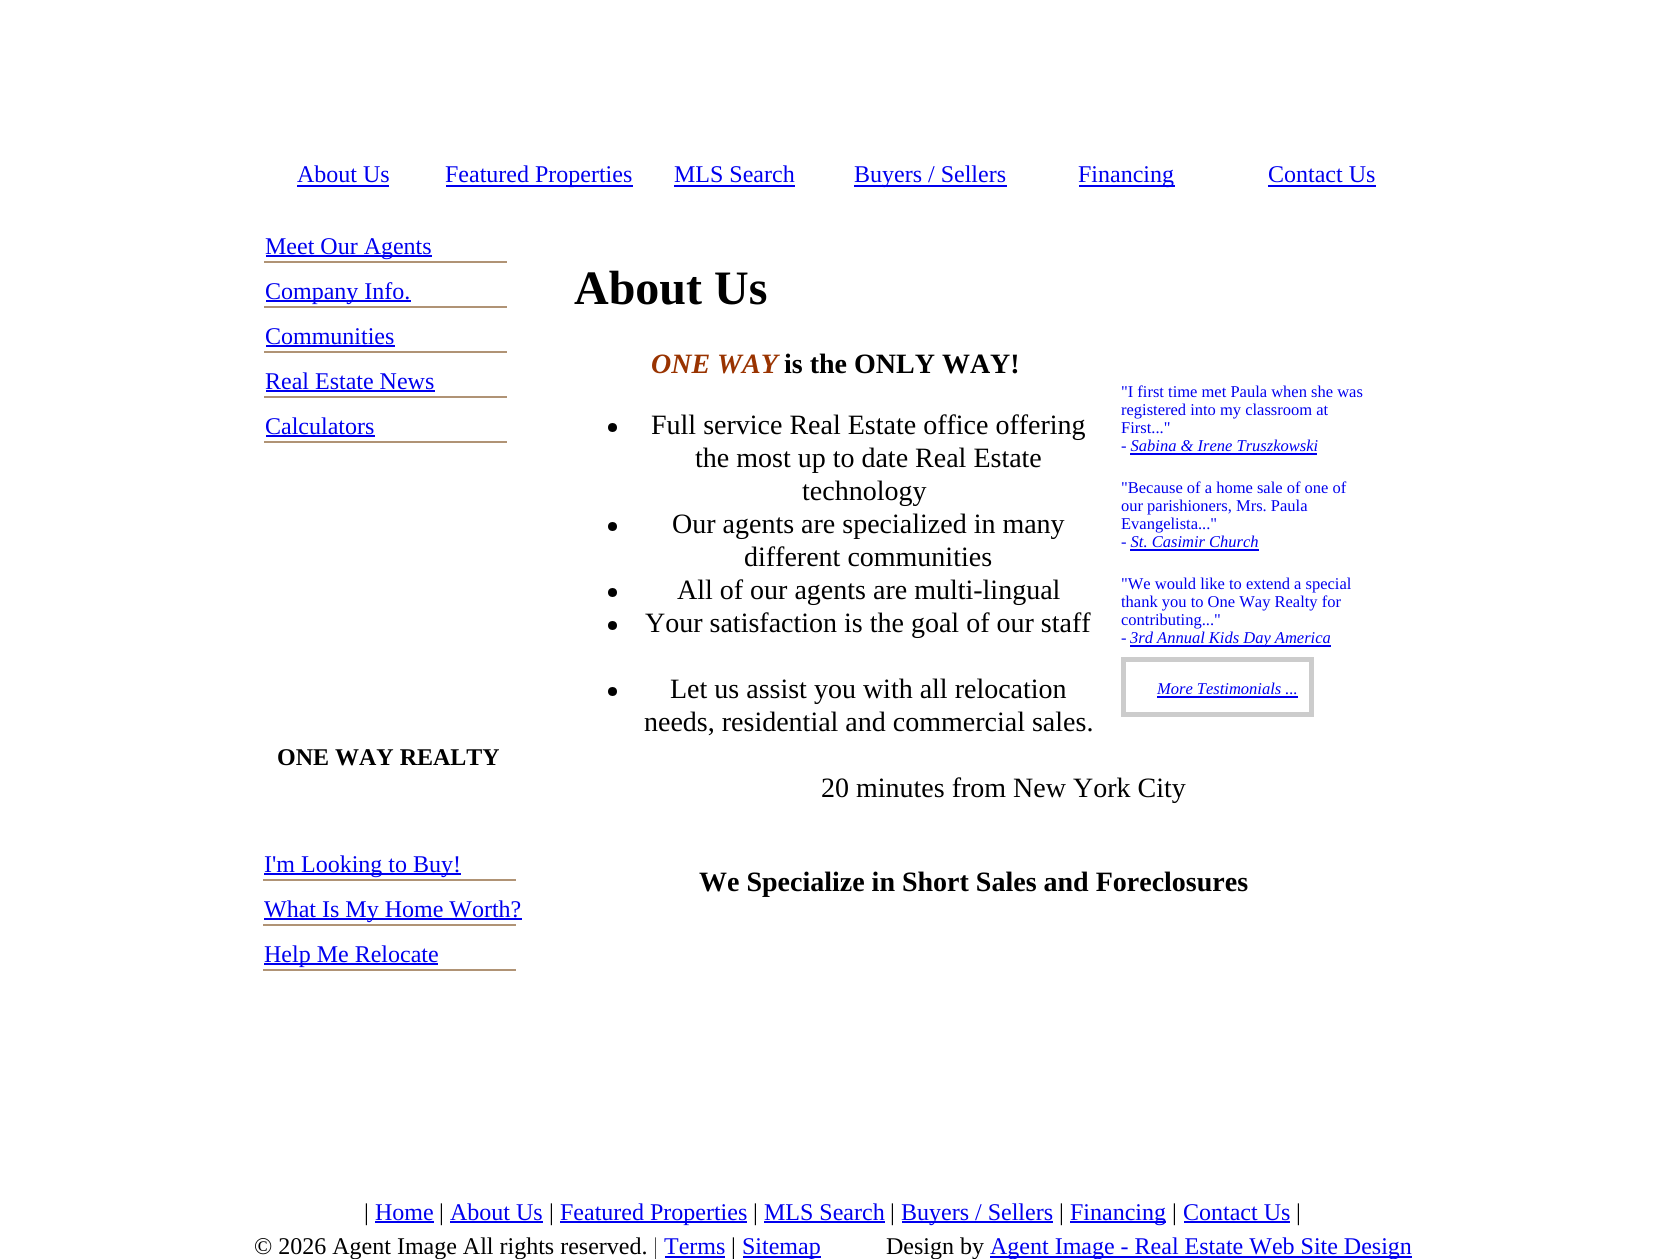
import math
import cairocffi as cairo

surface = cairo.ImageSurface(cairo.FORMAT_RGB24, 1664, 1259)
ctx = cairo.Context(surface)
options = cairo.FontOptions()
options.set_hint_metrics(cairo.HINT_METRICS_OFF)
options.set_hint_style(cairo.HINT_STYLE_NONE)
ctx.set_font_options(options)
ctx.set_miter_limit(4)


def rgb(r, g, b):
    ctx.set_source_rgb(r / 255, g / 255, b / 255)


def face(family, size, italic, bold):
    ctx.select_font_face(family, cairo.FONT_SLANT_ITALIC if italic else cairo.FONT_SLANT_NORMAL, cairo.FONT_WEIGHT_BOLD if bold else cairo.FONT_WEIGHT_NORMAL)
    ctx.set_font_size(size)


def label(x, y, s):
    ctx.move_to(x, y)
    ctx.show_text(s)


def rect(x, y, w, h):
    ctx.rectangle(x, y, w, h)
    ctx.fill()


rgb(255, 255, 255)
ctx.paint()
face('Liberation Serif', 24, 0, 0)
rgb(0, 0, 238)
label(297, 182, 'About Us')
rect(297, 185, 92, 2)
rect(446, 185, 187, 2)
label(445, 182, 'Featured Properties')
label(674, 182, 'MLS Search')
rect(674, 185, 121, 2)
rect(854, 185, 153, 2)
label(854, 182, 'Buyers / Sellers')
rect(1079, 185, 96, 2)
label(1078, 182, 'Financing')
label(1268, 182, 'Contact Us')
rect(1268, 185, 108, 2)
rgb(176, 147, 117)
rect(264, 261, 243, 2)
rgb(0, 0, 238)
rect(266, 255, 166, 2)
label(265, 254, 'Meet Our Agents')
rgb(176, 147, 117)
rect(264, 306, 243, 2)
rgb(0, 0, 238)
rect(266, 300, 145, 2)
label(265, 299, 'Company Info.')
rgb(176, 147, 117)
rect(264, 351, 243, 2)
rgb(0, 0, 238)
label(265, 344, 'Communities')
rect(266, 345, 129, 2)
rgb(176, 147, 117)
rect(264, 396, 243, 2)
rgb(0, 0, 238)
label(265, 389, 'Real Estate News')
rect(266, 390, 169, 2)
rgb(176, 147, 117)
rect(264, 441, 243, 2)
rgb(0, 0, 238)
label(265, 434, 'Calculators')
rect(266, 435, 109, 2)
face('Liberation Serif', 24, 0, 1)
rgb(0, 0, 0)
label(277, 765, 'ONE WAY REALTY')
rgb(176, 147, 117)
rect(263, 879, 253, 2)
rgb(0, 0, 238)
rect(264, 873, 197, 2)
face('Liberation Serif', 24, 0, 0)
label(264, 872, 'I\'m Looking to Buy!')
rgb(176, 147, 117)
rect(263, 924, 253, 2)
rgb(0, 0, 238)
rect(264, 918, 258, 2)
label(264, 917, 'What Is My Home Worth?')
rgb(176, 147, 117)
rect(263, 969, 253, 2)
rgb(0, 0, 238)
rect(264, 963, 174, 2)
label(264, 962, 'Help Me Relocate')
face('Liberation Serif', 48, 0, 1)
rgb(0, 0, 0)
label(574, 304, 'About Us')
face('Liberation Serif', 28, 1, 1)
rgb(153, 51, 0)
label(651, 373, 'ONE WAY')
face('Liberation Serif', 28, 0, 1)
rgb(0, 0, 0)
label(784, 373, 'is the ONLY WAY!')
ctx.new_path()
ctx.arc(612.5, 427.5, 4.5, 0, 2 * math.pi)
ctx.fill()
face('Liberation Serif', 28, 0, 0)
label(651, 434, 'Full service Real Estate office offering')
label(695, 467, 'the most up to date Real Estate')
label(802, 500, 'technology')
ctx.new_path()
ctx.arc(612.5, 526.5, 4.5, 0, 2 * math.pi)
ctx.fill()
label(672, 533, 'Our agents are specialized in many')
label(744, 566, 'different communities')
ctx.new_path()
ctx.arc(612.5, 592.5, 4.5, 0, 2 * math.pi)
ctx.fill()
label(677, 599, 'All of our agents are multi-lingual')
ctx.new_path()
ctx.arc(612.5, 625.5, 4.5, 0, 2 * math.pi)
ctx.fill()
label(645, 632, 'Your satisfaction is the goal of our staff')
ctx.new_path()
ctx.arc(612.5, 691.5, 4.5, 0, 2 * math.pi)
ctx.fill()
label(670, 698, 'Let us assist you with all relocation')
label(644, 731, 'needs, residential and commercial sales.')
label(821, 797, '20 minutes from New York City')
face('Liberation Serif', 16.5, 0, 0)
rgb(0, 0, 238)
label(1121, 397, '"I first time met Paula when she was')
label(1121, 415, 'registered into my classroom at')
label(1121, 433, 'First..."')
face('Liberation Serif', 16.5, 1, 0)
label(1121, 451, '- Sabina & Irene Truszkowski')
rect(1130, 453, 187, 2)
face('Liberation Serif', 16.5, 0, 0)
label(1121, 493, '"Because of a home sale of one of')
label(1121, 511, 'our parishioners, Mrs. Paula')
label(1121, 529, 'Evangelista..."')
face('Liberation Serif', 16.5, 1, 0)
label(1121, 547, '- St. Casimir Church')
rect(1130, 549, 129, 2)
face('Liberation Serif', 16.5, 0, 0)
label(1121, 589, '"We would like to extend a special')
label(1121, 607, 'thank you to One Way Realty for')
label(1121, 625, 'contributing..."')
face('Liberation Serif', 16.5, 1, 0)
label(1121, 643, '-')
rect(1130, 645, 201, 2)
label(1130, 643, '3rd Annual Kids Day America')
ctx.rectangle(1123.5, 659.5, 188, 55)
rgb(204, 204, 204)
ctx.set_line_width(5)
ctx.stroke()
rgb(0, 0, 238)
label(1157, 694, 'More Testimonials ...')
rect(1157, 696, 141, 2)
face('Liberation Serif', 28, 0, 1)
rgb(0, 0, 0)
label(699, 891, 'We Specialize in Short Sales and Foreclosures')
face('Liberation Serif', 24, 0, 0)
label(364, 1220, '|')
rgb(0, 0, 238)
label(375, 1220, 'Home')
rect(375, 1221, 59, 2)
rgb(0, 0, 0)
label(439, 1220, '|')
rgb(0, 0, 238)
label(450, 1220, 'About Us')
rect(450, 1221, 93, 2)
rgb(0, 0, 0)
label(549, 1220, '|')
rgb(0, 0, 238)
rect(560, 1221, 187, 2)
label(560, 1220, 'Featured Properties')
rgb(0, 0, 0)
label(753, 1220, '|')
rgb(0, 0, 238)
label(764, 1220, 'MLS Search')
rect(764, 1221, 121, 2)
rgb(0, 0, 0)
label(890, 1220, '|')
rgb(0, 0, 238)
rect(902, 1221, 151, 2)
label(901, 1220, 'Buyers / Sellers')
rgb(0, 0, 0)
label(1059, 1220, '|')
rgb(0, 0, 238)
rect(1070, 1221, 96, 2)
label(1070, 1220, 'Financing')
rgb(0, 0, 0)
label(1172, 1220, '|')
rgb(0, 0, 238)
label(1183, 1220, 'Contact Us')
rect(1184, 1221, 106, 2)
rgb(0, 0, 0)
label(1296, 1220, '|')
label(254, 1254, '© 2026 Agent Image All rights reserved. |')
rgb(0, 0, 238)
label(664, 1254, 'Terms')
rect(665, 1256, 60, 2)
rgb(0, 0, 0)
label(731, 1254, '|')
rgb(0, 0, 238)
rect(743, 1256, 78, 2)
label(742, 1254, 'Sitemap')
rgb(0, 0, 0)
label(886, 1254, 'Design by')
rgb(0, 0, 238)
rect(990, 1256, 422, 2)
label(990, 1254, 'Agent Image - Real Estate Web Site Design')
surface.write_to_png('render.png')
